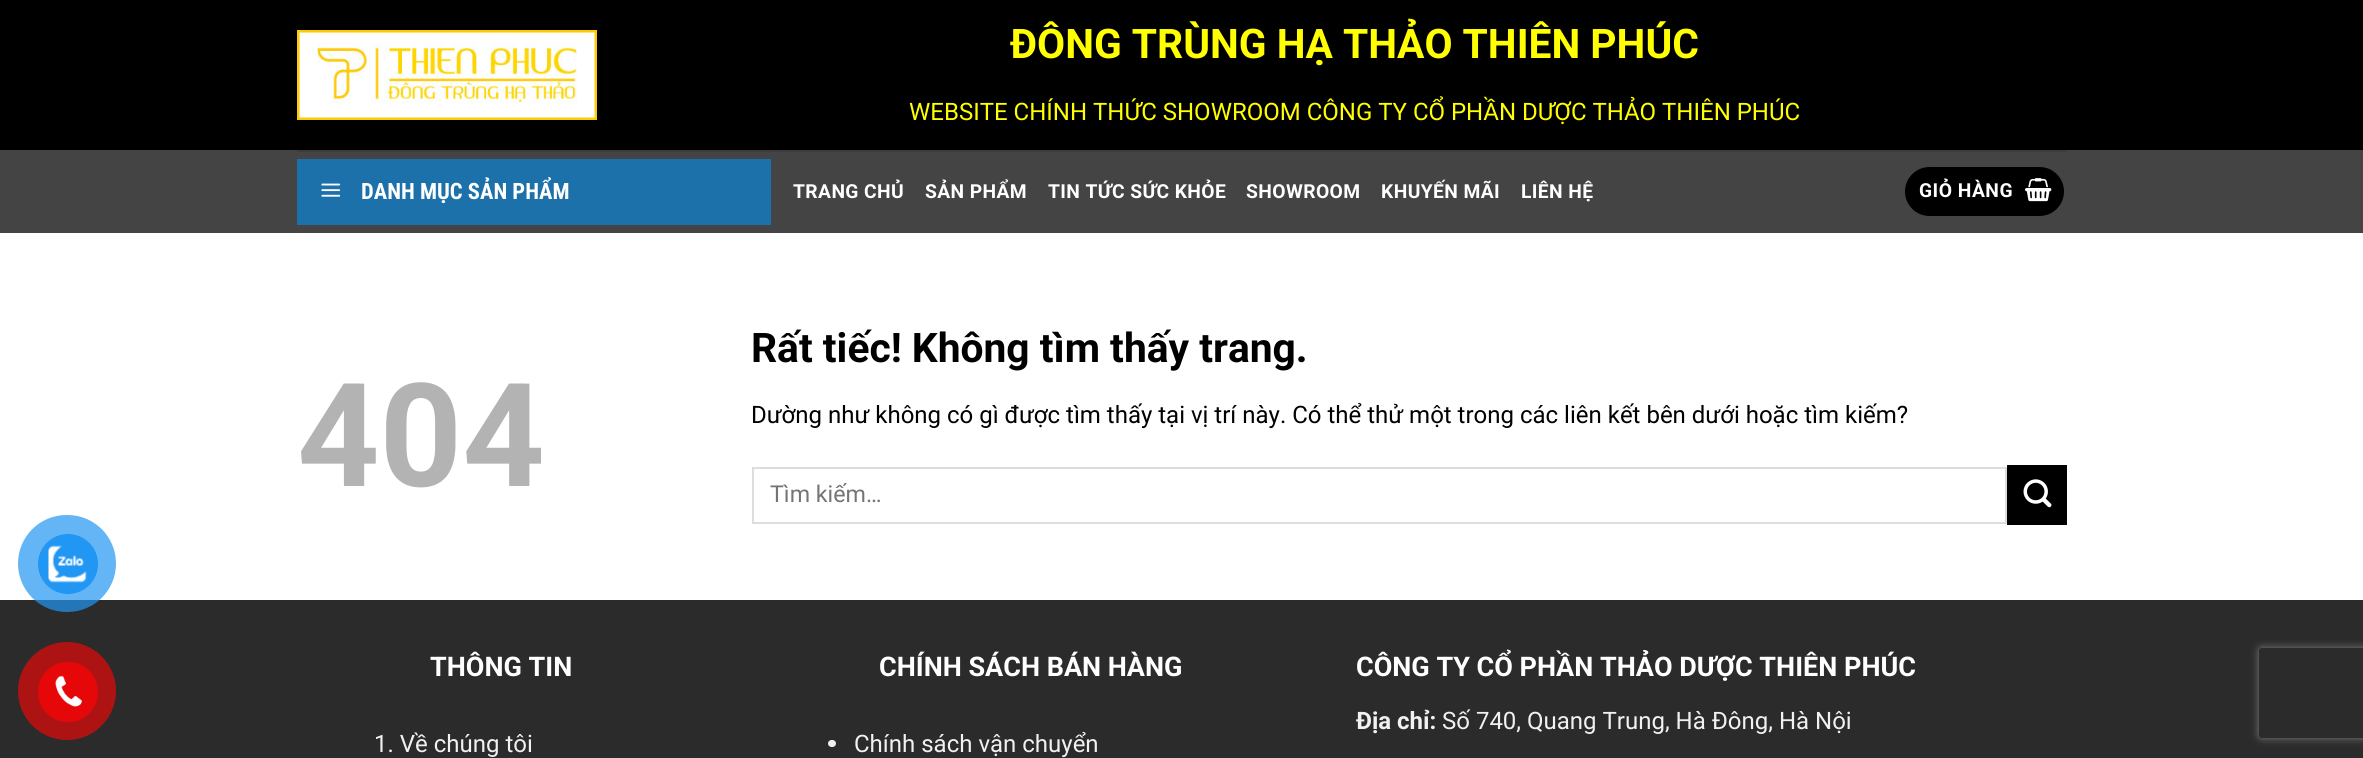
import math
import cairocffi as cairo

surface = cairo.ImageSurface(cairo.FORMAT_RGB24, 2363, 758)
ctx = cairo.Context(surface)
options = cairo.FontOptions()
options.set_hint_metrics(cairo.HINT_METRICS_OFF)
options.set_hint_style(cairo.HINT_STYLE_NONE)
ctx.set_font_options(options)
ctx.set_miter_limit(4)


def rgb(r, g, b):
    ctx.set_source_rgb(r / 255, g / 255, b / 255)


def face(family, size, italic, bold):
    ctx.select_font_face(family, cairo.FONT_SLANT_ITALIC if italic else cairo.FONT_SLANT_NORMAL, cairo.FONT_WEIGHT_BOLD if bold else cairo.FONT_WEIGHT_NORMAL)
    ctx.set_font_size(size)


def label(x, y, s):
    ctx.move_to(x, y)
    ctx.show_text(s)


def tracked(x, y, s, letter, word):
    ctx.move_to(x, y)
    for ch in s:
        ctx.show_text(ch)
        ctx.rel_move_to(letter + word * (ch == ' '), 0)


def rect(x, y, w, h):
    ctx.rectangle(x, y, w, h)
    ctx.fill()


def rrect(x, y, w, h, r):
    ctx.new_sub_path()
    for i, (u, v) in enumerate([(x + w - r, y + h - r), (x + r, y + h - r), (x + r, y + r), (x + w - r, y + r)]):
        ctx.arc(u, v, r, i * math.pi / 2, (i + 1) * math.pi / 2)
    ctx.close_path()


def soft_shadow(x, y, w, h, r, blur, alpha):
    ctx.push_group_with_content(cairo.CONTENT_ALPHA)
    ctx.set_operator(cairo.OPERATOR_SOURCE)
    for i in range(15, -16, -2):
        e = blur * i / 6
        if min(w, h) + 2 * e > 0:
            ctx.set_source_rgba(0, 0, 0, alpha * math.erfc((i - 1) / 8.5) / 2)
            rrect(x - e, y - e, w + 2 * e, h + 2 * e, max(0, min(r + e + blur * .6, min(w, h) / 2 + e)))
            ctx.fill()
    ctx.mask(ctx.pop_group())


def image(path, x, y, w, h):
    ctx.save()
    ctx.set_source_surface(cairo.ImageSurface.create_from_png(path), x, y)
    ctx.rectangle(x, y, w, h)
    ctx.fill()
    ctx.restore()


rgb(255, 255, 255)
ctx.paint()
rgb(43, 43, 43)
rect(0, 600, 2363, 158)
ctx.set_source_rgba(0.129, 0.588, 0.953, 0.7)
rrect(18, 515, 98, 97, 48.5)
ctx.fill()
rgb(33, 150, 243)
ctx.arc(68, 564, 30, 0, 2 * math.pi)
ctx.fill()
image('image0.png', 48, 545, 39, 38)
rgb(174, 19, 19)
ctx.arc(67, 691, 49, 0, 2 * math.pi)
ctx.fill()
rgb(230, 8, 8)
ctx.arc(68, 692, 30, 0, 2 * math.pi)
ctx.fill()
image('image1.png', 55, 675, 27, 32)
rgb(0, 0, 0)
rect(0, 0, 2363, 150)
image('image2.png', 297, 30, 300, 90)
face('Roboto', 40.75, 0, 1)
rgb(255, 255, 0)
label(1010, 58, 'ĐÔNG TRÙNG HẠ THẢO THIÊN PHÚC')
face('Roboto', 24, 0, 0)
label(909, 120, 'WEBSITE CHÍNH THỨC SHOWROOM CÔNG TY CỔ PHẦN DƯỢC THẢO THIÊN PHÚC')
rgb(68, 68, 68)
rect(0, 150, 2363, 83)
rgb(61, 61, 61)
rect(297, 150, 1770, 2)
rgb(29, 113, 171)
rect(297, 159, 474, 66)
image('image3.png', 321, 183, 20, 14)
face('Roboto Condensed', 22.5, 0, 1)
rgb(255, 255, 255)
label(361, 199, 'DANH MỤC SẢN PHẨM')
face('Roboto', 19.25, 0, 1)
tracked(793, 198, 'TRANG CHỦ', 0.4, 0)
tracked(925, 198, 'SẢN PHẨM', 0.4, 0)
tracked(1048, 198, 'TIN TỨC SỨC KHỎE', 0.4, 0)
tracked(1246, 198, 'SHOWROOM', 0.4, 0)
tracked(1381, 198, 'KHUYẾN MÃI', 0.4, 0)
tracked(1521, 198, 'LIÊN HỆ', 0.4, 0)
rgb(0, 0, 0)
rrect(1905, 167, 159, 49, 24.5)
ctx.fill()
rgb(255, 255, 255)
tracked(1919, 197, 'GIỎ HÀNG', 0.5, 0)
image('image4.png', 2025, 178, 27, 24)
face('Roboto', 144, 0, 1)
rgb(179, 179, 179)
label(297, 486, '404')
face('Roboto', 40.75, 0, 1)
rgb(0, 0, 0)
label(751, 362, 'Rất tiếc! Không tìm thấy trang.')
face('Roboto', 24, 0, 0)
label(751, 423, 'Dường như không có gì được tìm thấy tại vị trí này. Có thể thử một trong các liên kết bên dưới hoặc tìm kiếm?')
ctx.rectangle(753, 468, 1253, 55)
rgb(221, 221, 221)
ctx.stroke()
face('Roboto', 23.25, 0, 0)
rgb(117, 117, 117)
label(770, 502, 'Tìm kiếm…')
rgb(0, 0, 0)
rect(2007, 465, 60, 60)
image('image5.png', 2023, 479, 29, 29)
face('Roboto', 27, 0, 1)
rgb(255, 255, 255)
label(430, 676, 'THÔNG TIN')
face('Roboto', 24, 0, 0)
rgb(241, 241, 241)
label(374, 752, '1. Về chúng tôi')
face('Roboto', 27, 0, 1)
rgb(255, 255, 255)
label(879, 676, 'CHÍNH SÁCH BÁN HÀNG')
rgb(241, 241, 241)
rrect(828, 740, 8, 7, 3.5)
ctx.fill()
face('Roboto', 24, 0, 0)
label(854, 752, 'Chính sách vận chuyển')
face('Roboto', 27, 0, 1)
rgb(255, 255, 255)
label(1356, 676, 'CÔNG TY CỔ PHẦN THẢO DƯỢC THIÊN PHÚC')
face('Roboto', 24, 0, 1)
rgb(241, 241, 241)
label(1356, 729, 'Địa chỉ:')
face('Roboto', 24, 0, 0)
label(1442, 729, 'Số 740, Quang Trung, Hà Đông, Hà Nội')
ctx.save()
ctx.set_fill_rule(cairo.FILL_RULE_EVEN_ODD)
ctx.new_path()
ctx.move_to(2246, 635)
ctx.line_to(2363, 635)
ctx.line_to(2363, 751)
ctx.line_to(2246, 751)
ctx.close_path()
ctx.move_to(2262, 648)
ctx.line_to(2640, 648)
ctx.curve_to(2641.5, 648, 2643, 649.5, 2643, 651)
ctx.line_to(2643, 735)
ctx.curve_to(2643, 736.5, 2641.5, 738, 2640, 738)
ctx.line_to(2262, 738)
ctx.curve_to(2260.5, 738, 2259, 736.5, 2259, 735)
ctx.line_to(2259, 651)
ctx.curve_to(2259, 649.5, 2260.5, 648, 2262, 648)
ctx.close_path()
ctx.clip()
rgb(128, 128, 128)
soft_shadow(2259, 648, 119, 90, 3, 4, 1)
ctx.restore()
surface.write_to_png('render.png')
